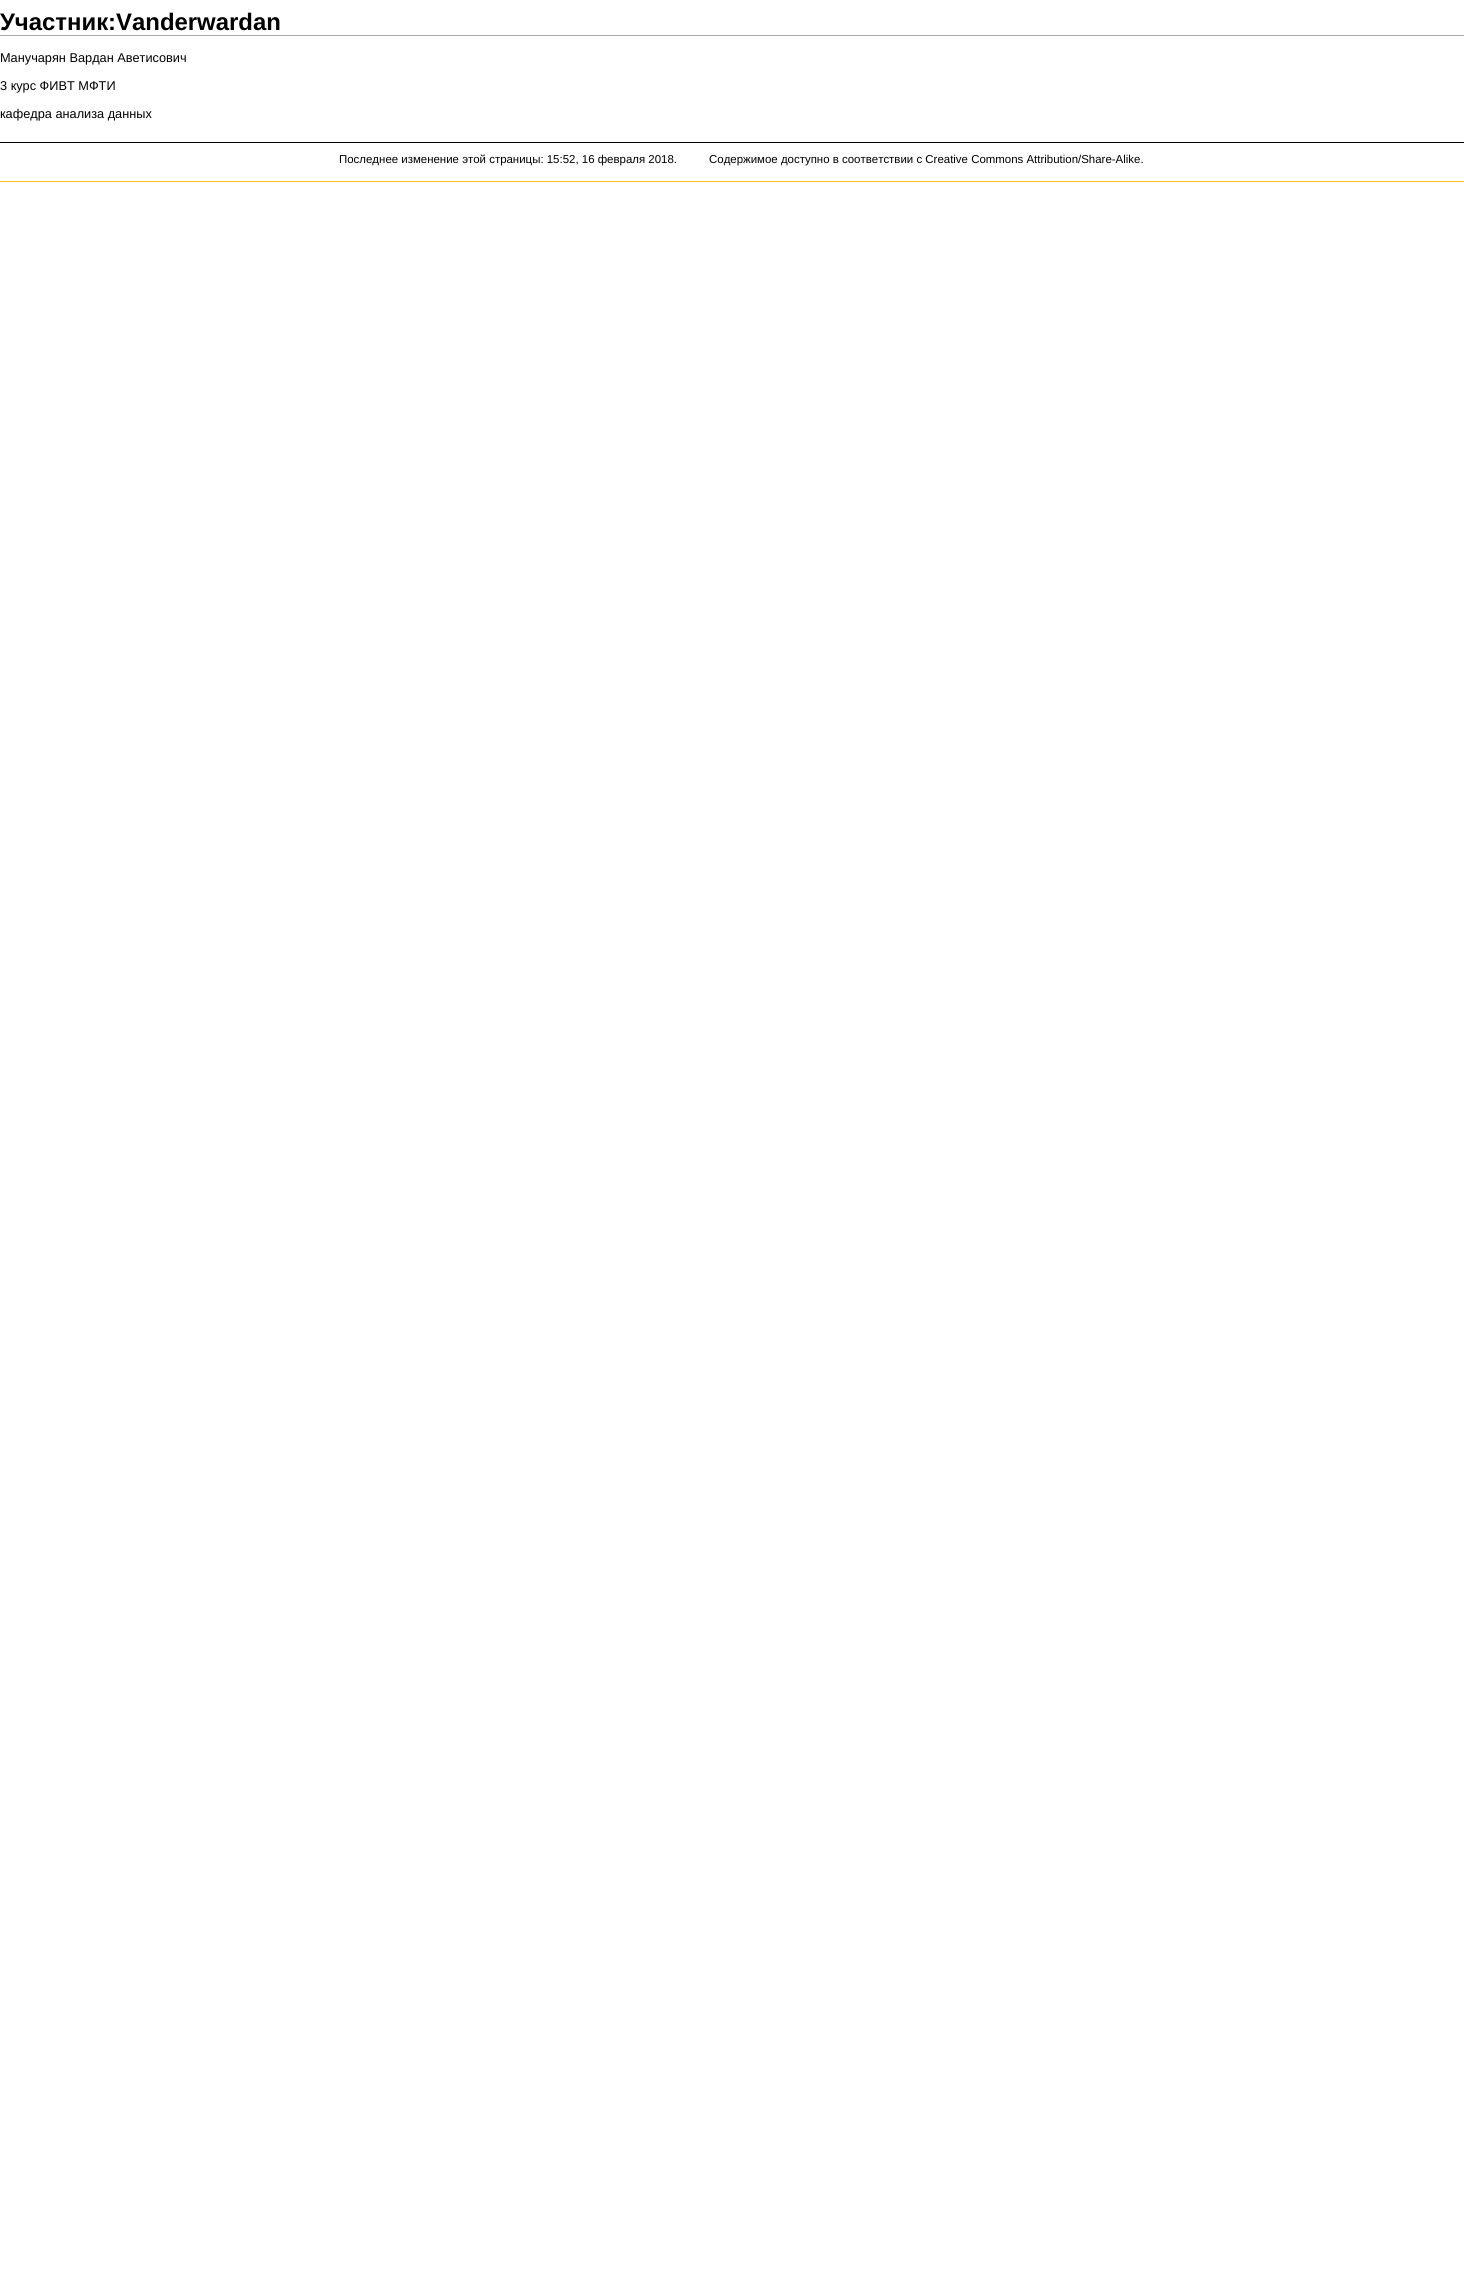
import math
import cairocffi as cairo

surface = cairo.ImageSurface(cairo.FORMAT_RGB24, 1464, 2274)
ctx = cairo.Context(surface)
options = cairo.FontOptions()
options.set_hint_metrics(cairo.HINT_METRICS_OFF)
options.set_hint_style(cairo.HINT_STYLE_NONE)
ctx.set_font_options(options)
ctx.set_miter_limit(4)


def rgb(r, g, b):
    ctx.set_source_rgb(r / 255, g / 255, b / 255)


def face(family, size, italic, bold):
    ctx.select_font_face(family, cairo.FONT_SLANT_ITALIC if italic else cairo.FONT_SLANT_NORMAL, cairo.FONT_WEIGHT_BOLD if bold else cairo.FONT_WEIGHT_NORMAL)
    ctx.set_font_size(size)


def label(x, y, s):
    ctx.move_to(x, y)
    ctx.show_text(s)


def rect(x, y, w, h):
    ctx.rectangle(x, y, w, h)
    ctx.fill()


rgb(255, 255, 255)
ctx.paint()
rgb(170, 170, 170)
rect(0, 35, 1464, 1)
face('Liberation Sans', 23.9, 0, 1)
rgb(0, 0, 0)
label(0, 30, 'Участник:Vanderwardan')
face('Liberation Sans', 12.75, 0, 0)
label(0, 62, 'Манучарян Вардан Аветисович')
label(0, 90, '3 курс ФИВТ МФТИ')
label(0, 118, 'кафедра анализа данных')
rect(0, 142, 1464, 1)
rgb(250, 189, 35)
rect(0, 181, 1464, 1)
face('Liberation Sans', 11.45, 0, 0)
rgb(0, 0, 0)
label(339, 163, 'Последнее изменение этой страницы: 15:52, 16 февраля 2018.')
label(709, 163, 'Содержимое доступно в соответствии с Creative Commons Attribution/Share-Alike.')
surface.write_to_png('render.png')
